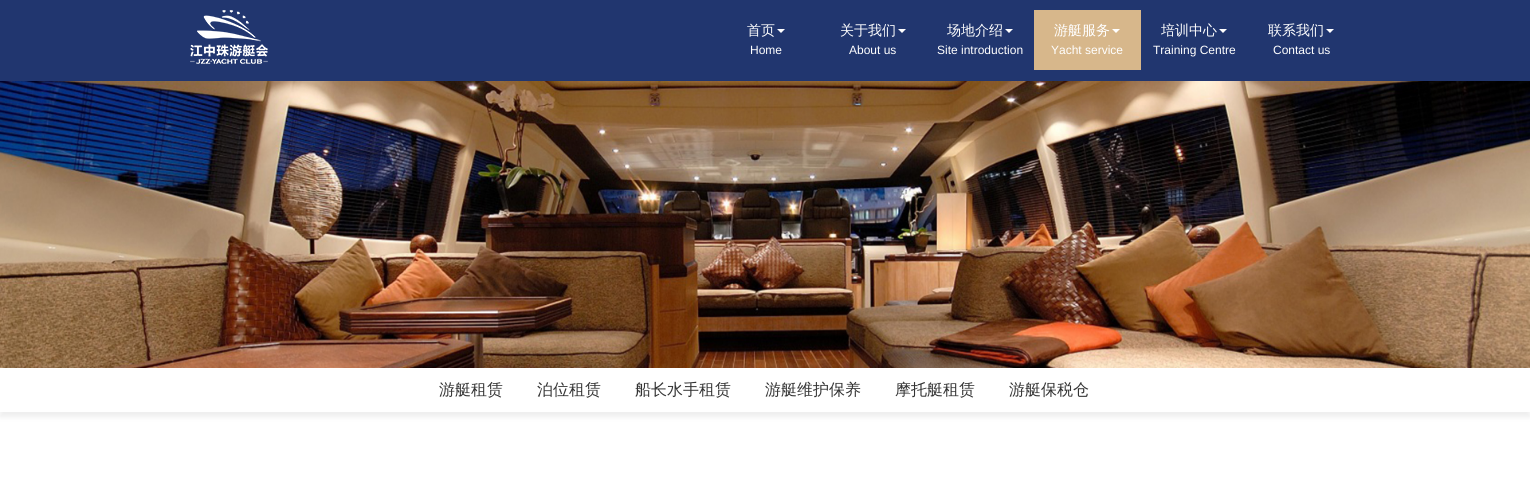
import math
import cairocffi as cairo

surface = cairo.ImageSurface(cairo.FORMAT_RGB24, 1530, 488)
ctx = cairo.Context(surface)
options = cairo.FontOptions()
options.set_hint_metrics(cairo.HINT_METRICS_OFF)
options.set_hint_style(cairo.HINT_STYLE_NONE)
ctx.set_font_options(options)
ctx.set_miter_limit(4)


def rgb(r, g, b):
    ctx.set_source_rgb(r / 255, g / 255, b / 255)


def face(family, size, italic, bold):
    ctx.select_font_face(family, cairo.FONT_SLANT_ITALIC if italic else cairo.FONT_SLANT_NORMAL, cairo.FONT_WEIGHT_BOLD if bold else cairo.FONT_WEIGHT_NORMAL)
    ctx.set_font_size(size)


def label(x, y, s):
    ctx.move_to(x, y)
    ctx.show_text(s)


def rect(x, y, w, h):
    ctx.rectangle(x, y, w, h)
    ctx.fill()


def rrect(x, y, w, h, r):
    ctx.new_sub_path()
    for i, (u, v) in enumerate([(x + w - r, y + h - r), (x + r, y + h - r), (x + r, y + r), (x + w - r, y + r)]):
        ctx.arc(u, v, r, i * math.pi / 2, (i + 1) * math.pi / 2)
    ctx.close_path()


def soft_shadow(x, y, w, h, r, blur, alpha):
    ctx.push_group_with_content(cairo.CONTENT_ALPHA)
    ctx.set_operator(cairo.OPERATOR_SOURCE)
    for i in range(15, -16, -2):
        e = blur * i / 6
        if min(w, h) + 2 * e > 0:
            ctx.set_source_rgba(0, 0, 0, alpha * math.erfc((i - 1) / 8.5) / 2)
            rrect(x - e, y - e, w + 2 * e, h + 2 * e, max(0, min(r + e + blur * .6, min(w, h) / 2 + e)))
            ctx.fill()
    ctx.mask(ctx.pop_group())


def image(path, x, y, w, h):
    ctx.save()
    ctx.set_source_surface(cairo.ImageSurface.create_from_png(path), x, y)
    ctx.rectangle(x, y, w, h)
    ctx.fill()
    ctx.restore()


rgb(255, 255, 255)
ctx.paint()
rgb(33, 54, 111)
rect(0, 0, 1530, 81)
image('image0.png', 190, 10, 78, 54)
face('WenQuanYi Zen Hei Medium', 14, 0, 0)
rgb(255, 255, 255)
label(747, 35, '首页')
ctx.new_path()
ctx.move_to(777, 29)
ctx.line_to(785, 29)
ctx.line_to(781, 33)
ctx.close_path()
ctx.fill()
face('Liberation Sans', 12, 0, 0)
label(750, 54, 'Home')
face('WenQuanYi Zen Hei Medium', 14, 0, 0)
label(840, 35, '关于我们')
ctx.new_path()
ctx.move_to(898, 29)
ctx.line_to(906, 29)
ctx.line_to(902, 33)
ctx.close_path()
ctx.fill()
face('Liberation Sans', 12, 0, 0)
label(849, 54, 'About us')
face('WenQuanYi Zen Hei Medium', 14, 0, 0)
label(947, 35, '场地介绍')
ctx.new_path()
ctx.move_to(1005, 29)
ctx.line_to(1013, 29)
ctx.line_to(1009, 33)
ctx.close_path()
ctx.fill()
face('Liberation Sans', 12, 0, 0)
label(937, 54, 'Site introduction')
rgb(215, 183, 139)
rect(1034, 10, 107, 60)
face('WenQuanYi Zen Hei Medium', 14, 0, 0)
rgb(255, 255, 255)
label(1054, 35, '游艇服务')
ctx.new_path()
ctx.move_to(1112, 29)
ctx.line_to(1120, 29)
ctx.line_to(1116, 33)
ctx.close_path()
ctx.fill()
face('Liberation Sans', 12, 0, 0)
label(1051, 54, 'Yacht service')
face('WenQuanYi Zen Hei Medium', 14, 0, 0)
label(1161, 35, '培训中心')
ctx.new_path()
ctx.move_to(1219, 29)
ctx.line_to(1227, 29)
ctx.line_to(1223, 33)
ctx.close_path()
ctx.fill()
face('Liberation Sans', 12, 0, 0)
label(1153, 54, 'Training Centre')
face('WenQuanYi Zen Hei Medium', 14, 0, 0)
label(1268, 35, '联系我们')
ctx.new_path()
ctx.move_to(1326, 29)
ctx.line_to(1334, 29)
ctx.line_to(1330, 33)
ctx.close_path()
ctx.fill()
face('Liberation Sans', 12, 0, 0)
label(1273, 54, 'Contact us')
image('image1.png', 0, 81, 1530, 287)
ctx.save()
ctx.rectangle(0, 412, 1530, 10)
ctx.clip()
rgb(238, 238, 238)
soft_shadow(0, 373, 1530, 44, 0, 2.5, 1)
ctx.restore()
face('WenQuanYi Zen Hei Medium', 16, 0, 0)
rgb(51, 51, 51)
label(439, 395, '游艇租赁')
label(537, 395, '泊位租赁')
label(635, 395, '船长水手租赁')
label(765, 395, '游艇维护保养')
label(895, 395, '摩托艇租赁')
label(1009, 395, '游艇保税仓')
surface.write_to_png('render.png')
